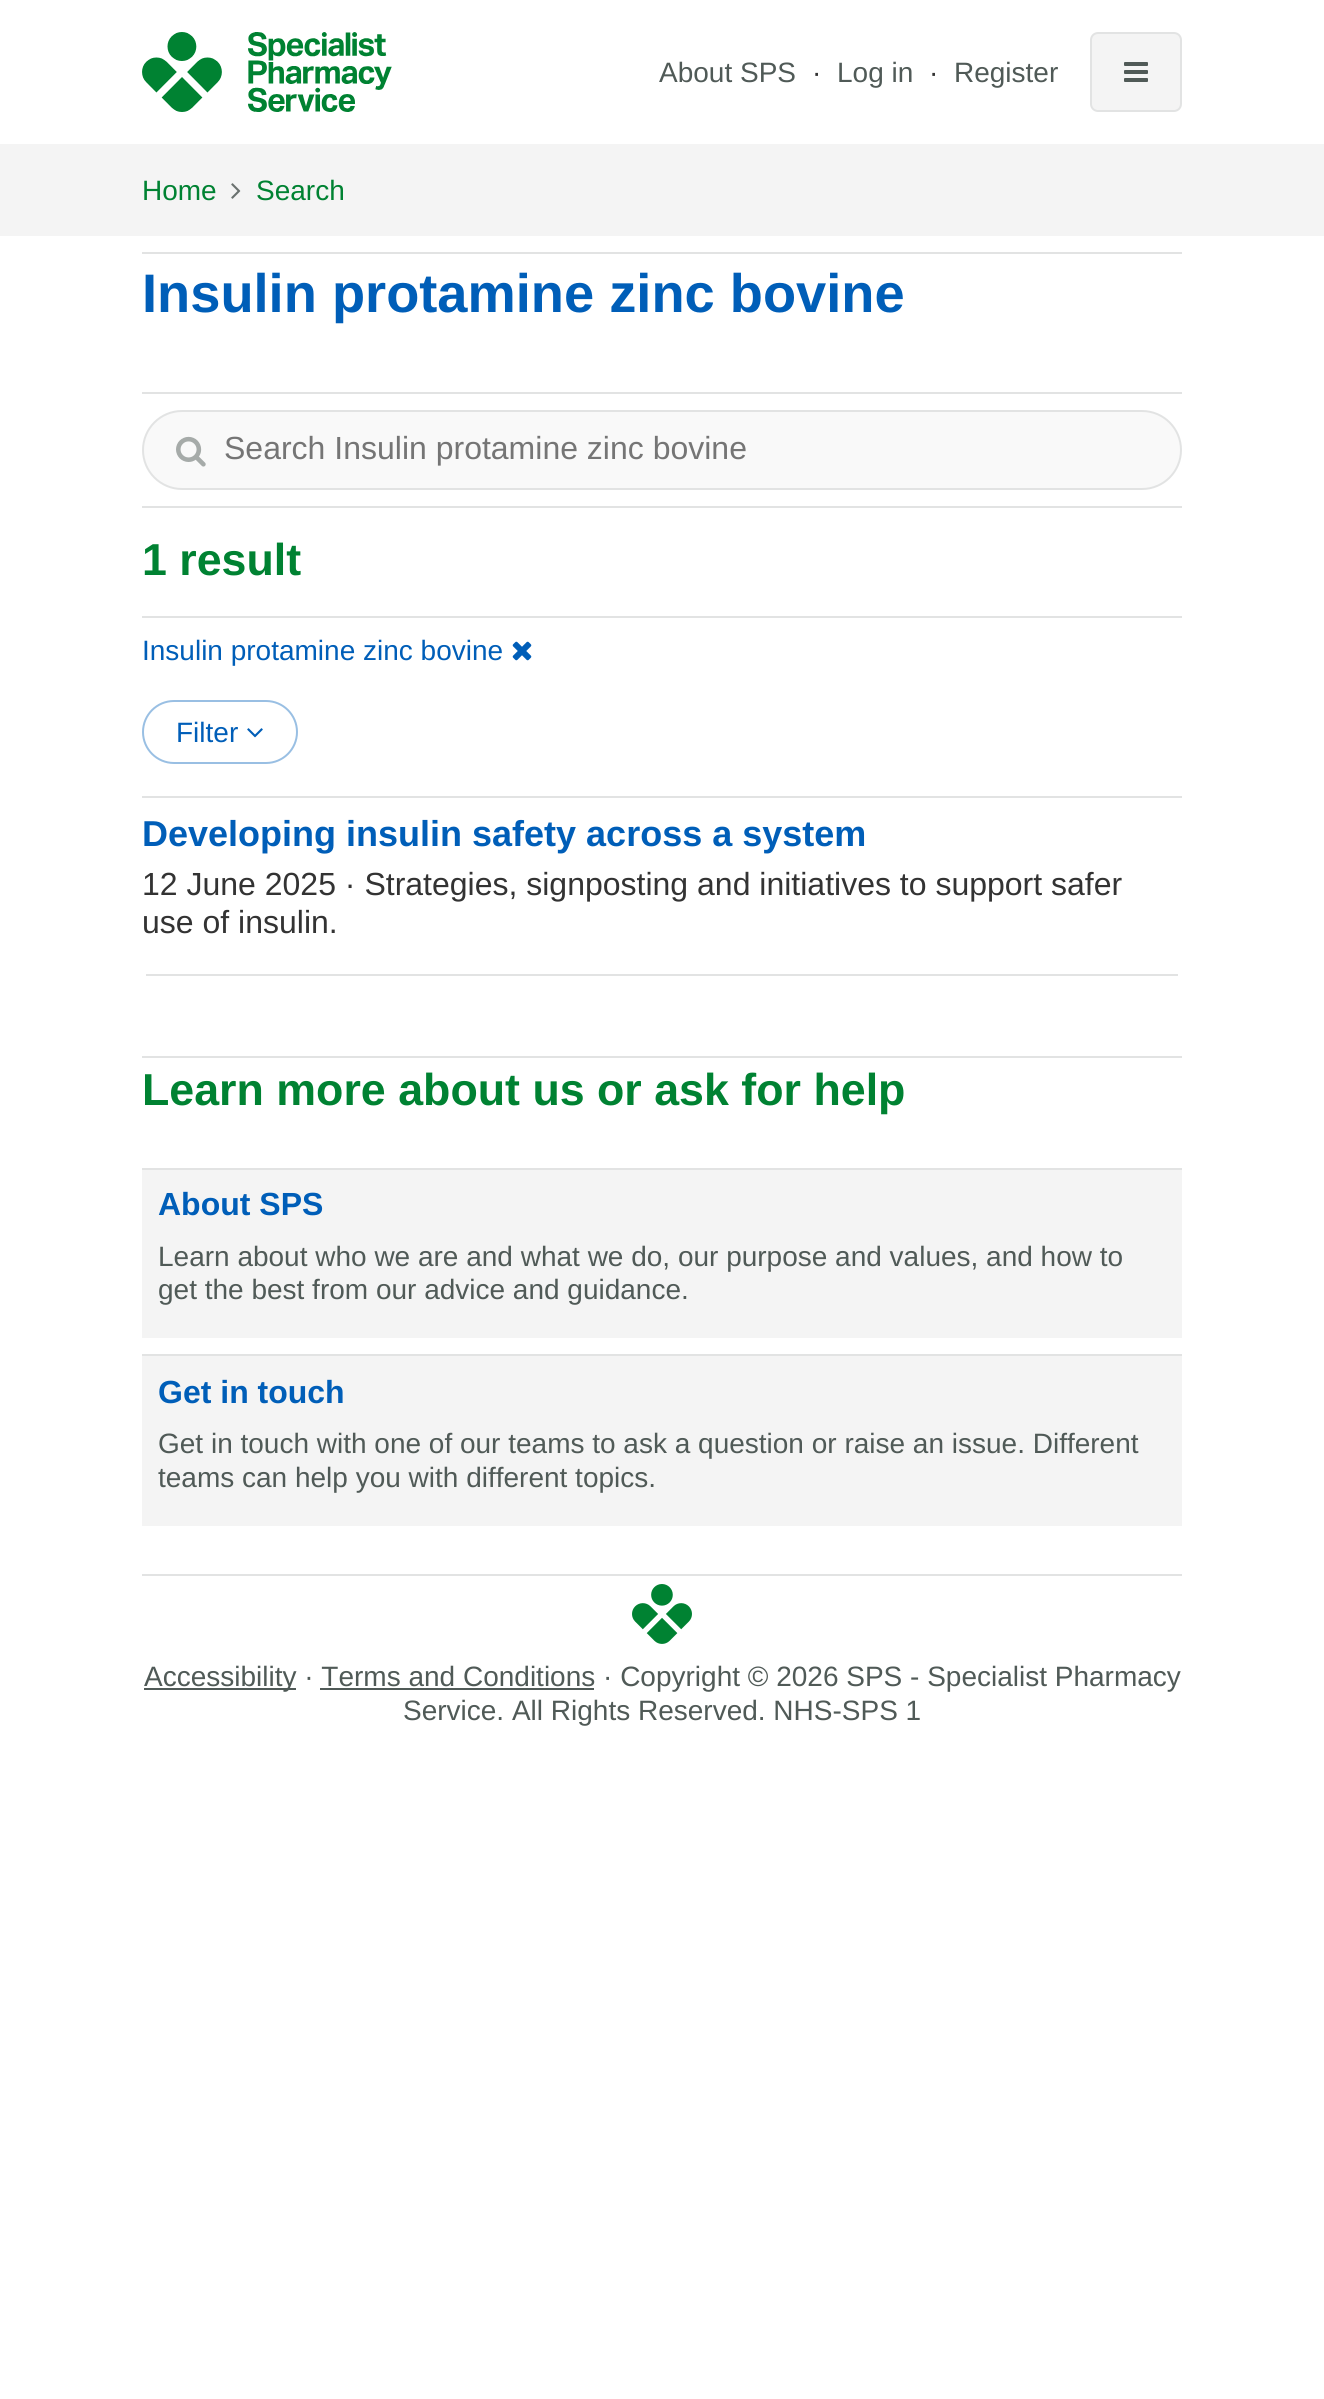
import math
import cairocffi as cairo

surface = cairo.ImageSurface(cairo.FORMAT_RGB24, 1324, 2399)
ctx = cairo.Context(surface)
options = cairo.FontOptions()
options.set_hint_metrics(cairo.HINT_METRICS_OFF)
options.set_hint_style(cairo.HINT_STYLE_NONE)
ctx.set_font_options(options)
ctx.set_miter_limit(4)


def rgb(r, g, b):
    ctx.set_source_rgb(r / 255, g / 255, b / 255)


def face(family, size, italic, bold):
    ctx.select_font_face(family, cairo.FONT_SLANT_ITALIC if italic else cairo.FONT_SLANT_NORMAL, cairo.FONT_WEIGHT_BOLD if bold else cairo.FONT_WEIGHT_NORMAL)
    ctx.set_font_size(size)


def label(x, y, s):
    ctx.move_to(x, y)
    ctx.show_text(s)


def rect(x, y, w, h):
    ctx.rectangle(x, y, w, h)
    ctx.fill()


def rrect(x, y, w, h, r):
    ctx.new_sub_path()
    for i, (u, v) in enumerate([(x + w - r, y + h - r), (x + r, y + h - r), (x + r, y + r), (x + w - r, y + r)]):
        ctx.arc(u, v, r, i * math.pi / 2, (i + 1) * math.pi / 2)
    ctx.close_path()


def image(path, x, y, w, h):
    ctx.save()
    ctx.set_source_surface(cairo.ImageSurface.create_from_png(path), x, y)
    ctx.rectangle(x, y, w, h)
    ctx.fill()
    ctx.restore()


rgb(255, 255, 255)
ctx.paint()
image('image0.png', 142, 32, 250, 80)
face('Liberation Sans', 28, 0, 0)
rgb(80, 90, 87)
label(659, 82, 'About SPS')
rgb(51, 51, 51)
label(812, 82, '·')
rgb(80, 90, 87)
label(837, 82, 'Log in')
rgb(51, 51, 51)
label(929, 82, '·')
rgb(80, 90, 87)
label(954, 82, 'Register')
rgb(244, 244, 244)
rrect(1091, 33, 90, 78, 7)
ctx.fill_preserve()
rgb(226, 227, 227)
ctx.stroke()
image('image1.png', 1124, 62, 24, 20)
rgb(244, 244, 244)
rect(0, 144, 1324, 92)
rgb(0, 130, 50)
label(142, 200, 'Home')
image('image2.png', 231, 183, 10, 16)
label(256, 200, 'Search')
rgb(226, 227, 227)
rect(142, 252, 1040, 2)
face('Liberation Sans', 54.25, 0, 1)
rgb(0, 94, 184)
label(142, 312, 'Insulin protamine zinc bovine')
rgb(226, 227, 227)
rect(142, 392, 1040, 2)
rgb(249, 249, 249)
rrect(143, 411, 1038, 78, 39)
ctx.fill_preserve()
rgb(226, 227, 227)
ctx.stroke()
image('image3.png', 176, 436, 30, 31)
face('Liberation Sans', 32, 0, 0)
rgb(117, 117, 117)
label(224, 459, 'Search Insulin protamine zinc bovine')
rgb(226, 227, 227)
rect(142, 506, 1040, 2)
face('Liberation Sans', 44.75, 0, 1)
rgb(0, 130, 50)
label(142, 575, '1 result')
rgb(226, 227, 227)
rect(142, 616, 1040, 2)
face('Liberation Sans', 28, 0, 0)
rgb(0, 94, 184)
label(142, 660, 'Insulin protamine zinc bovine')
image('image4.png', 512, 641, 20, 20)
rrect(143, 701, 154, 62, 31)
rgb(153, 191, 227)
ctx.stroke()
rgb(0, 94, 184)
label(176, 742, 'Filter')
image('image5.png', 247, 728, 16, 10)
rgb(226, 227, 227)
rect(142, 796, 1040, 2)
face('Liberation Sans', 36, 0, 1)
rgb(0, 94, 184)
label(142, 846, 'Developing insulin safety across a system')
face('Liberation Sans', 32, 0, 0)
rgb(51, 51, 51)
label(142, 895, '12 June 2025 · Strategies, signposting and initiatives to support safer')
label(142, 933, 'use of insulin.')
rgb(226, 227, 227)
rect(146, 974, 1032, 2)
rect(142, 1056, 1040, 2)
face('Liberation Sans', 44.75, 0, 1)
rgb(0, 130, 50)
label(142, 1105, 'Learn more about us or ask for help')
rgb(226, 227, 227)
rect(142, 1168, 1040, 2)
rgb(244, 244, 244)
rect(142, 1170, 1040, 168)
face('Liberation Sans', 32, 0, 1)
rgb(0, 94, 184)
label(158, 1215, 'About SPS')
face('Liberation Sans', 28, 0, 0)
rgb(80, 90, 87)
label(158, 1266, 'Learn about who we are and what we do, our purpose and values, and how to')
label(158, 1299, 'get the best from our advice and guidance.')
rgb(226, 227, 227)
rect(142, 1354, 1040, 2)
rgb(244, 244, 244)
rect(142, 1356, 1040, 170)
face('Liberation Sans', 32, 0, 1)
rgb(0, 94, 184)
label(158, 1403, 'Get in touch')
face('Liberation Sans', 28, 0, 0)
rgb(80, 90, 87)
label(158, 1453, 'Get in touch with one of our teams to ask a question or raise an issue. Different')
label(158, 1487, 'teams can help you with different topics.')
rgb(226, 227, 227)
rect(142, 1574, 1040, 2)
image('image6.png', 632, 1584, 60, 60)
rgb(80, 90, 87)
rect(144, 1688, 152, 2)
label(144, 1686, 'Accessibility · Terms and Conditions · Copyright © 2026 SPS - Specialist Pharmacy')
rect(320, 1688, 274, 2)
label(403, 1720, 'Service. All Rights Reserved. NHS-SPS 1')
surface.write_to_png('render.png')
